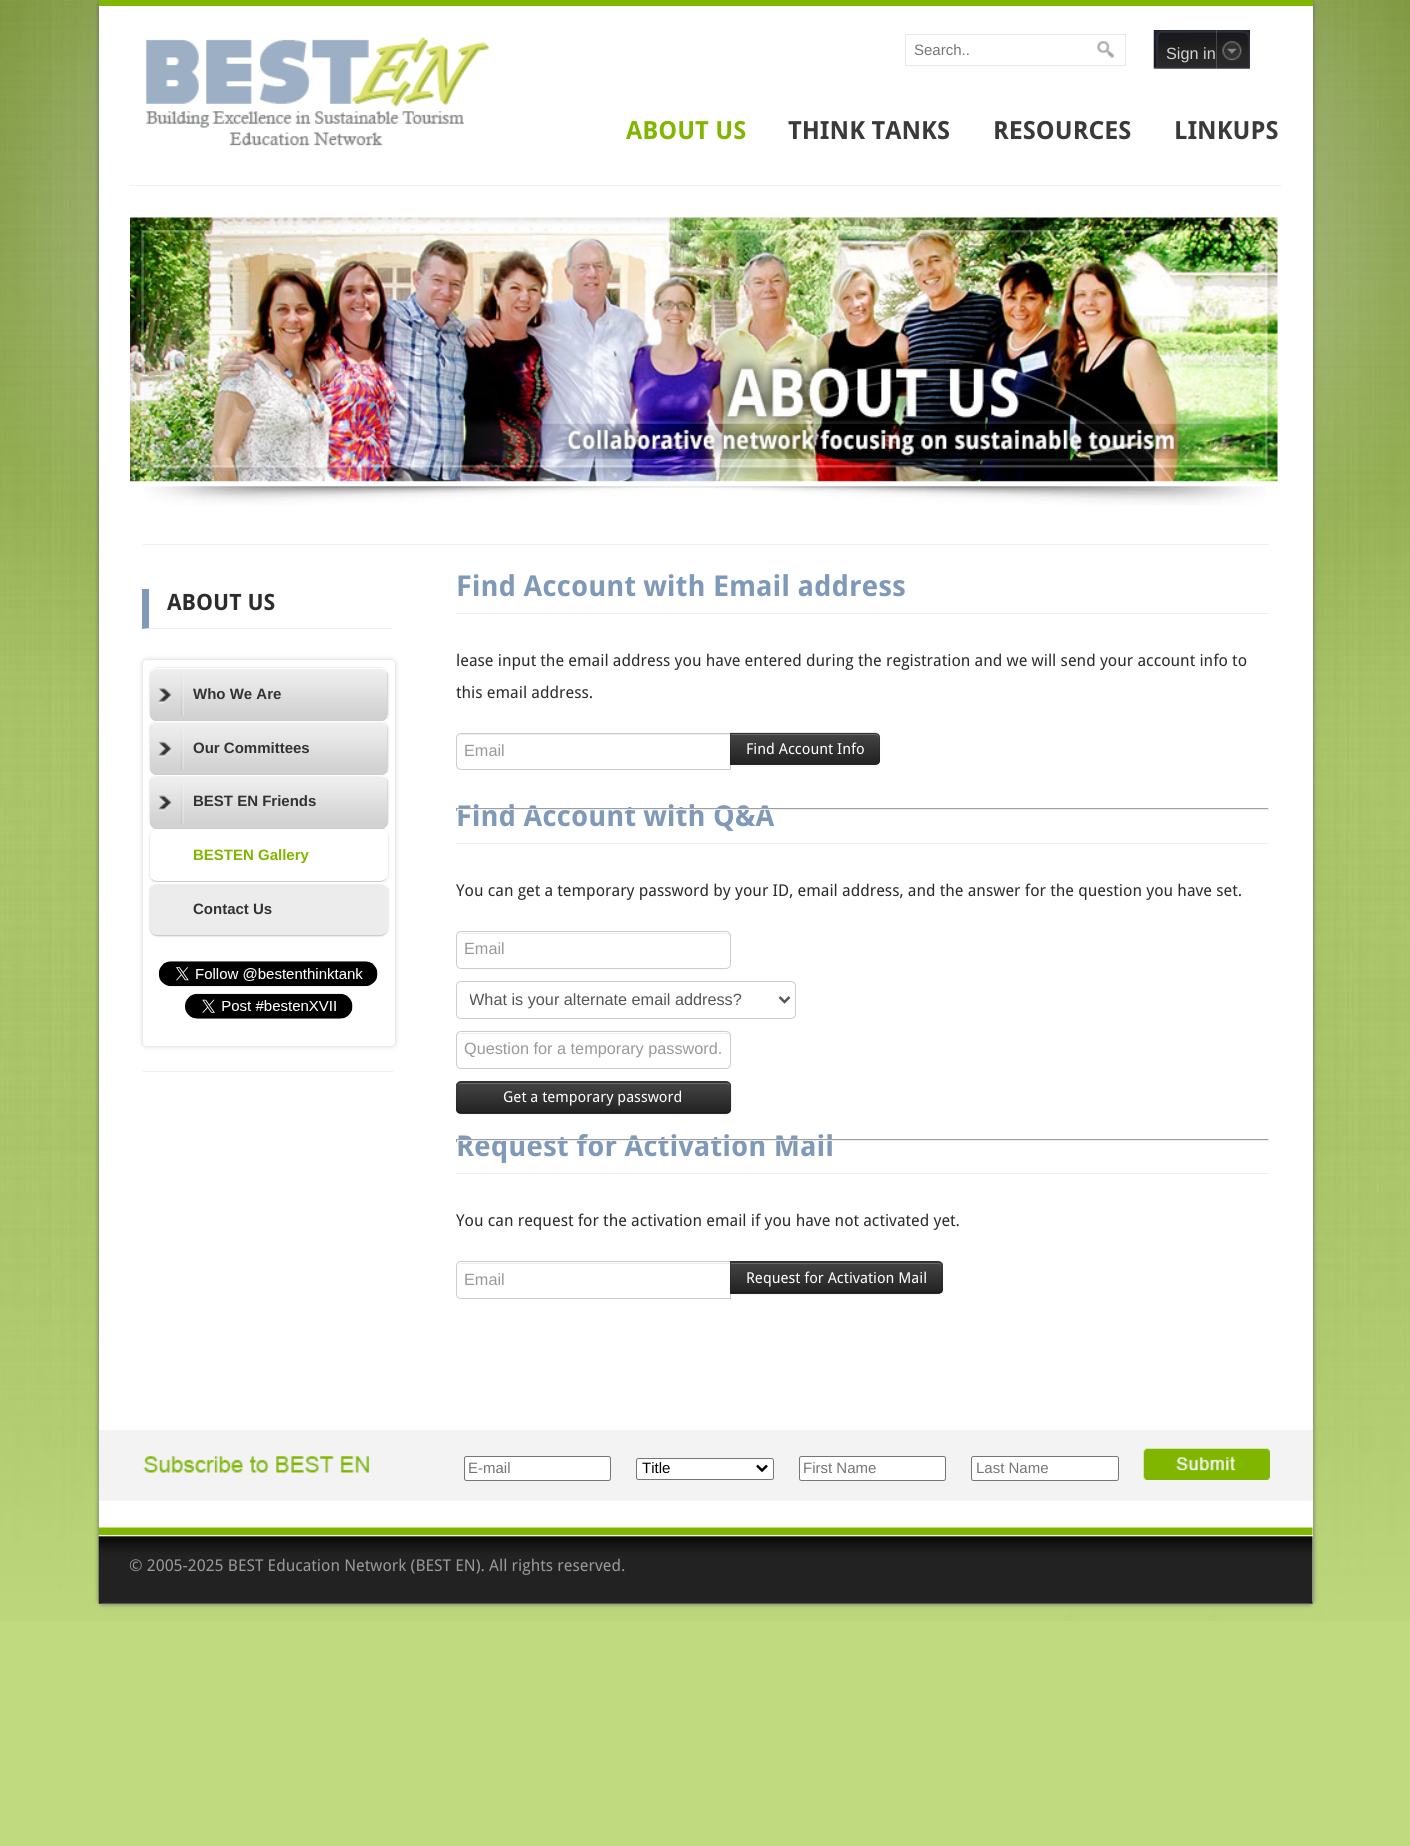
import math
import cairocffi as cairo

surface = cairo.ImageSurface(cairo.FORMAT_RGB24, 1410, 1846)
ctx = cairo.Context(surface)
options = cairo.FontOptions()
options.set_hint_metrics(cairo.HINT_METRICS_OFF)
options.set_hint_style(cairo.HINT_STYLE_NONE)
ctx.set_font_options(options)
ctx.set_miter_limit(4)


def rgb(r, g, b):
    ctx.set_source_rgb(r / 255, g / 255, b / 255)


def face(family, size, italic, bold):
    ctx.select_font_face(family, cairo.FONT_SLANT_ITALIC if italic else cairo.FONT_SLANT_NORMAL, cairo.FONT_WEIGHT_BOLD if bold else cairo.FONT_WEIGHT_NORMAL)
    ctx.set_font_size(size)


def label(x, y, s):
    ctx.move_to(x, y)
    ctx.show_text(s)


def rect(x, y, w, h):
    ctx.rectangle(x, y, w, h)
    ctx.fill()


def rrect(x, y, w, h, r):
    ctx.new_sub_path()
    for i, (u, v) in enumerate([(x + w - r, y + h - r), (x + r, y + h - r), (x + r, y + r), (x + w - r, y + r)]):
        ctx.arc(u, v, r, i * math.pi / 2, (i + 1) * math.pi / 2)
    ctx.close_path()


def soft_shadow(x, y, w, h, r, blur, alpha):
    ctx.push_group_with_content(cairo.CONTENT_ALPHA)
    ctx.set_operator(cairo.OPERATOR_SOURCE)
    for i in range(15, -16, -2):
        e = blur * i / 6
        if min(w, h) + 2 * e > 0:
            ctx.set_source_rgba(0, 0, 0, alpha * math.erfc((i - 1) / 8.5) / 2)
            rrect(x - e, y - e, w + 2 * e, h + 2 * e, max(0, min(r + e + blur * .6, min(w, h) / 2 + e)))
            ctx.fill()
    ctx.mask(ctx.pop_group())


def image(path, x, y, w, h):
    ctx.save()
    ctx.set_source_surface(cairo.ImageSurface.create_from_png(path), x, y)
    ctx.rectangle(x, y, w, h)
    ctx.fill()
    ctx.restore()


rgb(191, 218, 127)
ctx.paint()
image('image0.png', 0, 0, 1410, 1621)
rgb(102, 102, 102)
soft_shadow(99, 0, 1214, 1604, 4, 2.5, 1)
rgb(255, 255, 255)
rrect(99, 0, 1214, 1604, 4)
ctx.fill()
rgb(128, 182, 0)
rect(99, 0, 1214, 6)
image('image1.png', 146, 37, 343, 109)
ctx.rectangle(905.5, 34.5, 220, 31)
rgb(233, 233, 233)
ctx.set_line_width(1)
ctx.stroke()
face('Liberation Sans', 15, 0, 0)
rgb(117, 117, 117)
label(914, 55, 'Search..')
image('image2.png', 1097, 41, 17, 17)
image('image3.png', 1216, 30, 34, 39)
image('image4.png', 1153, 30, 64, 39)
face('Liberation Sans', 16.25, 0, 0)
rgb(211, 211, 211)
label(1166, 59, 'Sign in')
face('Droid Sans', 25, 0, 1)
rgb(128, 182, 0)
label(626, 139, 'ABOUT US')
rgb(58, 58, 58)
label(788, 139, 'THINK TANKS')
label(993, 139, 'RESOURCES')
label(1174, 139, 'LINKUPS')
rgb(239, 239, 239)
rect(130, 185, 1151, 1)
image('image5.png', 130, 217, 1148, 265)
image('image6.png', 144, 486, 1122, 20)
rect(143, 544, 1126, 1)
rect(143, 1071, 250, 1)
ctx.new_path()
ctx.move_to(392, 629)
ctx.line_to(142, 629)
ctx.line_to(149, 628)
ctx.line_to(392, 628)
ctx.close_path()
ctx.fill()
rgb(127, 153, 184)
ctx.new_path()
ctx.move_to(142, 629)
ctx.line_to(142, 589)
ctx.line_to(149, 589)
ctx.line_to(149, 628)
ctx.close_path()
ctx.fill()
face('Droid Sans', 22.5, 0, 1)
rgb(44, 44, 44)
label(167, 610, 'ABOUT US')
ctx.save()
ctx.set_fill_rule(cairo.FILL_RULE_EVEN_ODD)
ctx.new_path()
ctx.move_to(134, 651)
ctx.line_to(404, 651)
ctx.line_to(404, 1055)
ctx.line_to(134, 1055)
ctx.close_path()
ctx.move_to(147, 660)
ctx.line_to(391, 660)
ctx.curve_to(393, 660, 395, 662, 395, 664)
ctx.line_to(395, 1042)
ctx.curve_to(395, 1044, 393, 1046, 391, 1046)
ctx.line_to(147, 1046)
ctx.curve_to(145, 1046, 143, 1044, 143, 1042)
ctx.line_to(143, 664)
ctx.curve_to(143, 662, 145, 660, 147, 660)
ctx.close_path()
ctx.clip()
rgb(204, 204, 204)
soft_shadow(143, 660, 252, 386, 4, 2.5, 1)
ctx.restore()
rgb(204, 204, 204)
soft_shadow(150, 668, 238, 53, 8, 1, 1)
rgb(215, 212, 212)
rrect(150, 668, 238, 53, 8)
ctx.fill()
image('image7.png', 150, 668, 238, 53)
rgb(255, 255, 255)
ctx.new_path()
ctx.move_to(158, 668)
ctx.line_to(380, 668)
ctx.curve_to(383, 668, 388, 670, 388, 673)
ctx.curve_to(386, 671, 383, 669, 380, 669)
ctx.line_to(158, 669)
ctx.curve_to(153, 669, 150, 672, 150, 675)
ctx.curve_to(150, 671, 153, 668, 158, 668)
ctx.close_path()
ctx.fill()
rgb(204, 204, 204)
ctx.new_path()
ctx.move_to(388, 716)
ctx.curve_to(386, 719, 383, 721, 380, 721)
ctx.line_to(158, 721)
ctx.curve_to(153, 721, 150, 718, 150, 714)
ctx.curve_to(150, 717, 153, 720, 158, 720)
ctx.line_to(380, 720)
ctx.curve_to(383, 720, 386, 718, 388, 716)
ctx.close_path()
ctx.fill()
image('image8.png', 158, 674, 26, 42)
face('Liberation Sans', 15, 0, 1)
rgb(51, 51, 51)
label(193, 699, 'Who We Are')
rgb(204, 204, 204)
soft_shadow(150, 721, 238, 54, 8, 1, 1)
rgb(215, 212, 212)
rrect(150, 721, 238, 54, 8)
ctx.fill()
image('image9.png', 150, 721, 238, 54)
rgb(255, 255, 255)
ctx.new_path()
ctx.move_to(158, 722)
ctx.curve_to(153, 722, 150, 725, 150, 729)
ctx.curve_to(150, 726, 152, 721, 156, 721)
ctx.line_to(382, 721)
ctx.curve_to(384, 721, 388, 725, 388, 727)
ctx.curve_to(386, 724, 383, 722, 380, 722)
ctx.close_path()
ctx.fill()
rgb(204, 204, 204)
ctx.new_path()
ctx.move_to(158, 775)
ctx.line_to(380, 775)
ctx.curve_to(383, 775, 388, 773, 388, 770)
ctx.curve_to(386, 772, 383, 774, 380, 774)
ctx.line_to(158, 774)
ctx.curve_to(153, 774, 150, 771, 150, 768)
ctx.curve_to(150, 772, 153, 775, 158, 775)
ctx.close_path()
ctx.fill()
image('image10.png', 158, 728, 26, 42)
rgb(51, 51, 51)
label(193, 753, 'Our Committees')
rgb(204, 204, 204)
soft_shadow(150, 775, 238, 54, 8, 1, 1)
rgb(215, 212, 212)
rrect(150, 775, 238, 54, 8)
ctx.fill()
image('image11.png', 150, 775, 238, 53)
rgb(255, 255, 255)
ctx.new_path()
ctx.move_to(158, 775)
ctx.curve_to(153, 775, 150, 778, 150, 782)
ctx.curve_to(150, 779, 153, 776, 158, 776)
ctx.line_to(380, 776)
ctx.curve_to(383, 776, 386, 778, 388, 780)
ctx.curve_to(388, 777, 383, 775, 380, 775)
ctx.close_path()
ctx.fill()
rgb(204, 204, 204)
ctx.new_path()
ctx.move_to(156, 829)
ctx.curve_to(152, 828, 150, 825, 150, 821)
ctx.curve_to(150, 825, 153, 828, 158, 828)
ctx.line_to(380, 828)
ctx.curve_to(383, 828, 386, 826, 388, 823)
ctx.curve_to(388, 825, 384, 829, 382, 829)
ctx.close_path()
ctx.fill()
image('image12.png', 158, 782, 26, 42)
rgb(51, 51, 51)
label(193, 806, 'BEST EN Friends')
rgb(204, 204, 204)
soft_shadow(150, 829, 238, 54, 8, 1, 1)
rgb(255, 255, 255)
rrect(150, 829, 238, 54, 8)
ctx.fill()
ctx.new_path()
ctx.move_to(158, 829)
ctx.line_to(380, 829)
ctx.curve_to(383, 829, 388, 831, 388, 834)
ctx.curve_to(386, 832, 383, 830, 380, 830)
ctx.line_to(158, 830)
ctx.curve_to(153, 830, 150, 833, 150, 836)
ctx.curve_to(150, 832, 153, 829, 158, 829)
ctx.close_path()
ctx.fill()
rgb(204, 204, 204)
ctx.new_path()
ctx.move_to(388, 877)
ctx.curve_to(386, 880, 383, 882, 380, 882)
ctx.line_to(158, 882)
ctx.curve_to(153, 882, 150, 879, 150, 875)
ctx.curve_to(150, 878, 153, 881, 158, 881)
ctx.line_to(380, 881)
ctx.curve_to(383, 881, 386, 879, 388, 877)
ctx.close_path()
ctx.fill()
rgb(128, 182, 0)
label(193, 860, 'BESTEN Gallery')
rgb(204, 204, 204)
soft_shadow(150, 883, 238, 53, 8, 1, 1)
rgb(236, 236, 236)
rrect(150, 883, 238, 53, 8)
ctx.fill()
rgb(255, 255, 255)
ctx.new_path()
ctx.move_to(158, 884)
ctx.curve_to(153, 884, 150, 887, 150, 890)
ctx.curve_to(150, 888, 152, 883, 155, 882)
ctx.line_to(383, 882)
ctx.curve_to(385, 883, 388, 886, 388, 888)
ctx.curve_to(386, 886, 383, 884, 380, 884)
ctx.close_path()
ctx.fill()
rgb(204, 204, 204)
ctx.new_path()
ctx.move_to(388, 931)
ctx.curve_to(386, 934, 383, 936, 380, 936)
ctx.line_to(158, 936)
ctx.curve_to(153, 936, 150, 933, 150, 929)
ctx.curve_to(150, 932, 153, 935, 158, 935)
ctx.line_to(380, 935)
ctx.curve_to(383, 935, 386, 933, 388, 931)
ctx.close_path()
ctx.fill()
rgb(51, 51, 51)
label(193, 914, 'Contact Us')
image('image13.png', 158, 961, 220, 26)
image('image14.png', 185, 993, 168, 26)
rgb(239, 239, 239)
rect(456, 613, 813, 1)
face('Droid Sans', 28.75, 0, 1)
rgb(127, 153, 184)
label(456, 596, 'Find Account with Email address')
face('Droid Sans', 16.25, 0, 0)
rgb(44, 44, 44)
label(456, 666, 'lease input the email address you have entered during the registration and we will send your account info to')
label(456, 698, 'this email address.')
rgb(236, 236, 236)
ctx.new_path()
ctx.move_to(461, 735)
ctx.line_to(730, 735)
ctx.line_to(730, 734)
ctx.line_to(462, 734)
ctx.curve_to(459, 734, 458, 736, 458, 739)
ctx.curve_to(458, 737, 459, 735, 461, 735)
ctx.close_path()
ctx.fill()
ctx.new_path()
ctx.move_to(461, 733.5)
ctx.line_to(730.5, 733.5)
ctx.line_to(730.5, 769.5)
ctx.line_to(461, 769.5)
ctx.curve_to(458.5, 769.5, 456.5, 767.5, 456.5, 765)
ctx.line_to(456.5, 738)
ctx.curve_to(456.5, 735.5, 458.5, 733.5, 461, 733.5)
ctx.close_path()
rgb(204, 204, 204)
ctx.stroke()
face('Liberation Sans', 16.25, 0, 0)
rgb(153, 153, 153)
label(464, 756, 'Email')
rgb(0, 0, 0)
soft_shadow(730, 734, 150, 32, 5, 1, 0.05)
rgb(54, 54, 54)
ctx.new_path()
ctx.move_to(730, 733)
ctx.line_to(875, 733)
ctx.curve_to(878, 733, 880, 735, 880, 738)
ctx.line_to(880, 760)
ctx.curve_to(880, 763, 878, 765, 875, 765)
ctx.line_to(730, 765)
ctx.close_path()
ctx.fill()
ctx.save()
ctx.new_path()
ctx.move_to(730, 733)
ctx.line_to(875, 733)
ctx.curve_to(878, 733, 880, 735, 880, 738)
ctx.line_to(880, 760)
ctx.curve_to(880, 763, 878, 765, 875, 765)
ctx.line_to(730, 765)
ctx.close_path()
ctx.clip()
gradient = cairo.LinearGradient(805, 734, 805, 764)
gradient.add_color_stop_rgba(0, 0.267, 0.267, 0.267, 1)
gradient.add_color_stop_rgba(1, 0.133, 0.133, 0.133, 1)
ctx.set_source(gradient)
rect(730, 734, 150, 30)
ctx.restore()
rgb(105, 105, 105)
ctx.new_path()
ctx.move_to(731, 735)
ctx.line_to(875, 735)
ctx.curve_to(877, 735, 879, 737, 879, 739)
ctx.line_to(879, 738)
ctx.curve_to(879, 736, 877, 734, 875, 734)
ctx.line_to(731, 734)
ctx.close_path()
ctx.fill()
ctx.set_source_rgba(0, 0, 0, 0.1)
ctx.new_path()
ctx.move_to(730, 732)
ctx.line_to(877, 732)
ctx.line_to(879, 734)
ctx.line_to(878, 735)
ctx.line_to(875, 734)
ctx.line_to(732, 734)
ctx.close_path()
ctx.fill()
ctx.new_path()
ctx.move_to(880, 760)
ctx.line_to(880, 738)
ctx.curve_to(880, 736.5, 879.5, 735, 878.5, 734)
ctx.line_to(877.5, 735)
ctx.curve_to(878.5, 735.5, 879, 736.5, 879, 738)
ctx.line_to(879, 760)
ctx.curve_to(879, 761, 878.5, 762, 878, 763)
ctx.line_to(878.5, 763.5)
ctx.curve_to(879.5, 763, 880, 761.5, 880, 760)
ctx.close_path()
ctx.fill()
ctx.set_source_rgba(0, 0, 0, 0.25)
ctx.new_path()
ctx.move_to(875, 765)
ctx.curve_to(876, 765, 878, 764, 879, 764)
ctx.line_to(878, 763)
ctx.line_to(875, 764)
ctx.line_to(731, 764)
ctx.line_to(730, 765)
ctx.close_path()
ctx.fill()
ctx.set_source_rgba(0, 0, 0, 0.1)
ctx.new_path()
ctx.move_to(731, 734)
ctx.line_to(731.5, 734)
ctx.line_to(730, 732.5)
ctx.line_to(730, 765)
ctx.line_to(731, 764)
ctx.close_path()
ctx.fill()
face('Droid Sans', 15, 0, 0)
rgb(255, 255, 255)
label(746, 754, 'Find Account Info')
rgb(239, 239, 239)
rect(456, 843, 813, 1)
face('Droid Sans', 28.75, 0, 1)
rgb(127, 153, 184)
label(456, 826, 'Find Account with Q&A')
face('Droid Sans', 16.25, 0, 0)
rgb(44, 44, 44)
label(456, 896, 'You can get a temporary password by your ID, email address, and the answer for the question you have set.')
rgb(236, 236, 236)
ctx.new_path()
ctx.move_to(461, 934)
ctx.line_to(726, 934)
ctx.curve_to(728, 934, 730, 935, 730, 938)
ctx.curve_to(730, 935, 729, 933, 726, 933)
ctx.line_to(462, 933)
ctx.curve_to(459, 933, 458, 935, 458, 938)
ctx.curve_to(458, 935, 459, 934, 461, 934)
ctx.close_path()
ctx.fill()
rrect(456.5, 931.5, 274, 37, 4.5)
rgb(204, 204, 204)
ctx.stroke()
face('Liberation Sans', 16.25, 0, 0)
rgb(153, 153, 153)
label(464, 954, 'Email')
rrect(456.5, 981.5, 339, 37, 4.5)
rgb(204, 204, 204)
ctx.stroke()
ctx.new_path()
ctx.move_to(779.5, 997)
ctx.line_to(784.5, 1002)
ctx.line_to(789.5, 997)
rgb(85, 85, 85)
ctx.set_line_width(2.5)
ctx.stroke()
ctx.save()
ctx.rectangle(470, 989, 298, 21)
ctx.clip()
label(469, 1005, 'What is your alternate email address?')
ctx.restore()
rgb(236, 236, 236)
ctx.new_path()
ctx.move_to(461, 1034)
ctx.line_to(726, 1034)
ctx.curve_to(728, 1034, 730, 1035, 730, 1038)
ctx.curve_to(730, 1035, 729, 1033, 726, 1033)
ctx.line_to(462, 1033)
ctx.curve_to(459, 1033, 458, 1035, 458, 1038)
ctx.curve_to(458, 1035, 459, 1034, 461, 1034)
ctx.close_path()
ctx.fill()
rrect(456.5, 1031.5, 274, 37, 4.5)
rgb(204, 204, 204)
ctx.set_line_width(1)
ctx.stroke()
rgb(153, 153, 153)
label(464, 1054, 'Question for a temporary password.')
rgb(0, 0, 0)
soft_shadow(456, 1083, 275, 32, 5, 1, 0.05)
rgb(54, 54, 54)
rrect(456, 1081, 275, 33, 5)
ctx.fill()
ctx.save()
rrect(456, 1081, 275, 33, 5)
ctx.clip()
gradient = cairo.LinearGradient(594, 1083, 594, 1113)
gradient.add_color_stop_rgba(0, 0.267, 0.267, 0.267, 1)
gradient.add_color_stop_rgba(1, 0.133, 0.133, 0.133, 1)
ctx.set_source(gradient)
rect(456, 1083, 275, 30)
ctx.restore()
rgb(105, 105, 105)
ctx.new_path()
ctx.move_to(461, 1084)
ctx.line_to(726, 1084)
ctx.curve_to(728, 1084, 730, 1085, 730, 1088)
ctx.curve_to(730, 1085, 729, 1083, 726, 1083)
ctx.line_to(462, 1083)
ctx.curve_to(459, 1083, 458, 1085, 458, 1088)
ctx.curve_to(458, 1085, 459, 1084, 461, 1084)
ctx.close_path()
ctx.fill()
ctx.new_path()
ctx.move_to(729.5, 1112)
ctx.curve_to(728.5, 1112.5, 727.5, 1113, 726, 1113)
ctx.line_to(461, 1113)
ctx.curve_to(460, 1113, 459, 1112.5, 458, 1112)
ctx.set_source_rgba(0, 0, 0, 0.25)
ctx.set_line_width(1.2)
ctx.stroke()
ctx.new_path()
ctx.move_to(458, 1112)
ctx.curve_to(455.5, 1109, 457, 1094, 457, 1090)
ctx.curve_to(457, 1086.5, 456.5, 1082, 461, 1082)
ctx.line_to(726, 1082)
ctx.curve_to(731, 1082, 730.5, 1086.5, 730.5, 1090)
ctx.curve_to(730.5, 1094, 732, 1109, 729.5, 1112)
ctx.set_source_rgba(0, 0, 0, 0.1)
ctx.stroke()
face('Droid Sans', 15, 0, 0)
rgb(255, 255, 255)
label(503, 1102, 'Get a temporary password')
rgb(159, 159, 159)
rect(456, 808, 813, 1)
rgb(238, 238, 238)
rect(1268, 808, 1, 3)
rect(456, 809, 813, 1)
rgb(159, 159, 159)
rect(456, 808, 1, 3)
rgb(239, 239, 239)
rect(456, 1173, 813, 1)
face('Droid Sans', 28.75, 0, 1)
rgb(127, 153, 184)
label(456, 1156, 'Request for Activation Mail')
face('Droid Sans', 16.25, 0, 0)
rgb(44, 44, 44)
label(456, 1226, 'You can request for the activation email if you have not activated yet.')
rgb(236, 236, 236)
ctx.new_path()
ctx.move_to(461, 1264)
ctx.line_to(730, 1264)
ctx.line_to(730, 1263)
ctx.line_to(462, 1263)
ctx.curve_to(459, 1263, 458, 1265, 458, 1268)
ctx.curve_to(458, 1265, 459, 1264, 461, 1264)
ctx.close_path()
ctx.fill()
ctx.new_path()
ctx.move_to(461, 1261.5)
ctx.line_to(730.5, 1261.5)
ctx.line_to(730.5, 1298.5)
ctx.line_to(461, 1298.5)
ctx.curve_to(458.5, 1298.5, 456.5, 1296.5, 456.5, 1294)
ctx.line_to(456.5, 1266)
ctx.curve_to(456.5, 1263.5, 458.5, 1261.5, 461, 1261.5)
ctx.close_path()
rgb(204, 204, 204)
ctx.set_line_width(1)
ctx.stroke()
face('Liberation Sans', 16.25, 0, 0)
rgb(153, 153, 153)
label(464, 1285, 'Email')
rgb(0, 0, 0)
soft_shadow(730, 1263, 213, 32, 5, 1, 0.05)
rgb(54, 54, 54)
ctx.new_path()
ctx.move_to(730, 1261)
ctx.line_to(938, 1261)
ctx.curve_to(941, 1261, 943, 1263, 943, 1266)
ctx.line_to(943, 1289)
ctx.curve_to(943, 1292, 941, 1294, 938, 1294)
ctx.line_to(730, 1294)
ctx.close_path()
ctx.fill()
ctx.save()
ctx.new_path()
ctx.move_to(730, 1261)
ctx.line_to(938, 1261)
ctx.curve_to(941, 1261, 943, 1263, 943, 1266)
ctx.line_to(943, 1289)
ctx.curve_to(943, 1292, 941, 1294, 938, 1294)
ctx.line_to(730, 1294)
ctx.close_path()
ctx.clip()
gradient = cairo.LinearGradient(836, 1263, 836, 1293)
gradient.add_color_stop_rgba(0, 0.267, 0.267, 0.267, 1)
gradient.add_color_stop_rgba(1, 0.133, 0.133, 0.133, 1)
ctx.set_source(gradient)
rect(730, 1263, 213, 30)
ctx.restore()
rgb(105, 105, 105)
ctx.new_path()
ctx.move_to(731, 1264)
ctx.line_to(938, 1264)
ctx.curve_to(940, 1264, 941, 1265, 941, 1268)
ctx.curve_to(941, 1266, 941, 1264, 939, 1263)
ctx.line_to(731, 1263)
ctx.close_path()
ctx.fill()
ctx.set_source_rgba(0, 0, 0, 0.1)
ctx.new_path()
ctx.move_to(731, 1262)
ctx.line_to(730, 1261)
ctx.line_to(939, 1261)
ctx.line_to(941, 1263)
ctx.line_to(940, 1263)
ctx.curve_to(940, 1263, 939, 1262, 938, 1262)
ctx.close_path()
ctx.fill()
ctx.new_path()
ctx.move_to(941, 1262.5)
ctx.curve_to(941.5, 1263.5, 942, 1264.5, 942, 1266)
ctx.line_to(942, 1289)
ctx.curve_to(942, 1290.5, 941.5, 1291.5, 941, 1292.5)
ctx.line_to(940, 1291.5)
ctx.curve_to(940.5, 1291, 941, 1290, 941, 1289)
ctx.line_to(941, 1266)
ctx.curve_to(941, 1265, 941, 1264, 940.5, 1263.5)
ctx.close_path()
ctx.fill()
ctx.set_source_rgba(0, 0, 0, 0.25)
ctx.new_path()
ctx.move_to(939, 1294)
ctx.line_to(730, 1294)
ctx.line_to(732, 1292)
ctx.line_to(938, 1292)
ctx.line_to(940, 1291)
ctx.line_to(941, 1292)
ctx.close_path()
ctx.fill()
ctx.set_source_rgba(0, 0, 0, 0.1)
ctx.new_path()
ctx.move_to(730, 1294)
ctx.line_to(732, 1292)
ctx.line_to(731, 1292)
ctx.line_to(731, 1262)
ctx.line_to(730, 1261)
ctx.close_path()
ctx.fill()
face('Droid Sans', 15, 0, 0)
rgb(255, 255, 255)
label(746, 1283, 'Request for Activation Mail')
rgb(159, 159, 159)
rect(456, 1139, 813, 1)
rgb(238, 238, 238)
rect(1268, 1139, 1, 3)
rect(456, 1140, 813, 1)
rgb(159, 159, 159)
rect(456, 1139, 1, 3)
rgb(243, 243, 243)
rect(99, 1430, 1214, 71)
image('image15.png', 143, 1456, 227, 17)
rgb(255, 255, 255)
rrect(464.5, 1456.5, 146, 24, 2)
ctx.fill_preserve()
rgb(118, 118, 118)
ctx.stroke()
face('Liberation Sans', 15, 0, 0)
rgb(117, 117, 117)
label(468, 1473, 'E-mail')
rgb(255, 255, 255)
rrect(636.5, 1458.5, 137, 21, 2)
ctx.fill_preserve()
rgb(118, 118, 118)
ctx.stroke()
ctx.new_path()
ctx.move_to(757, 1465.5)
ctx.line_to(762, 1470.5)
ctx.line_to(767, 1465.5)
rgb(0, 0, 0)
ctx.set_line_width(2.5)
ctx.stroke()
label(642, 1473, 'Title')
rgb(255, 255, 255)
rrect(799.5, 1456.5, 146, 24, 2)
ctx.fill_preserve()
rgb(118, 118, 118)
ctx.set_line_width(1)
ctx.stroke()
rgb(117, 117, 117)
label(803, 1473, 'First Name')
rgb(255, 255, 255)
rrect(971.5, 1456.5, 147, 24, 2)
ctx.fill_preserve()
rgb(118, 118, 118)
ctx.stroke()
rgb(117, 117, 117)
label(976, 1473, 'Last Name')
image('image16.png', 1143, 1448, 127, 32)
image('image17.png', 98, 1527, 1215, 77)
face('Droid Sans', 16.25, 0, 0)
rgb(153, 153, 153)
label(129, 1571, '© 2005-2025 BEST Education Network (BEST EN). All rights reserved.')
surface.write_to_png('render.png')
